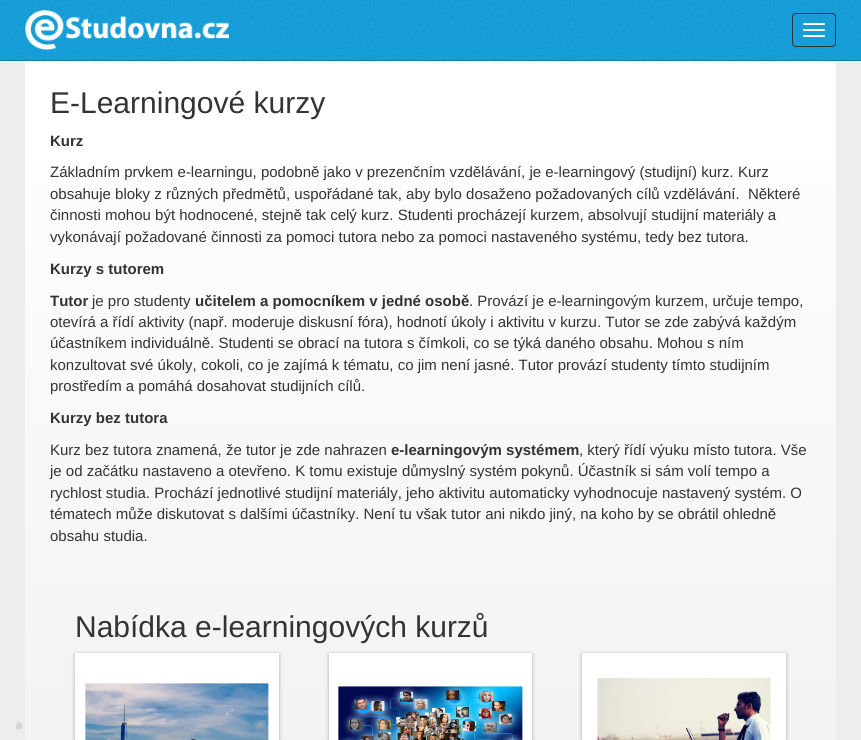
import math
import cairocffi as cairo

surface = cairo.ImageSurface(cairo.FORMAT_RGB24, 861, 740)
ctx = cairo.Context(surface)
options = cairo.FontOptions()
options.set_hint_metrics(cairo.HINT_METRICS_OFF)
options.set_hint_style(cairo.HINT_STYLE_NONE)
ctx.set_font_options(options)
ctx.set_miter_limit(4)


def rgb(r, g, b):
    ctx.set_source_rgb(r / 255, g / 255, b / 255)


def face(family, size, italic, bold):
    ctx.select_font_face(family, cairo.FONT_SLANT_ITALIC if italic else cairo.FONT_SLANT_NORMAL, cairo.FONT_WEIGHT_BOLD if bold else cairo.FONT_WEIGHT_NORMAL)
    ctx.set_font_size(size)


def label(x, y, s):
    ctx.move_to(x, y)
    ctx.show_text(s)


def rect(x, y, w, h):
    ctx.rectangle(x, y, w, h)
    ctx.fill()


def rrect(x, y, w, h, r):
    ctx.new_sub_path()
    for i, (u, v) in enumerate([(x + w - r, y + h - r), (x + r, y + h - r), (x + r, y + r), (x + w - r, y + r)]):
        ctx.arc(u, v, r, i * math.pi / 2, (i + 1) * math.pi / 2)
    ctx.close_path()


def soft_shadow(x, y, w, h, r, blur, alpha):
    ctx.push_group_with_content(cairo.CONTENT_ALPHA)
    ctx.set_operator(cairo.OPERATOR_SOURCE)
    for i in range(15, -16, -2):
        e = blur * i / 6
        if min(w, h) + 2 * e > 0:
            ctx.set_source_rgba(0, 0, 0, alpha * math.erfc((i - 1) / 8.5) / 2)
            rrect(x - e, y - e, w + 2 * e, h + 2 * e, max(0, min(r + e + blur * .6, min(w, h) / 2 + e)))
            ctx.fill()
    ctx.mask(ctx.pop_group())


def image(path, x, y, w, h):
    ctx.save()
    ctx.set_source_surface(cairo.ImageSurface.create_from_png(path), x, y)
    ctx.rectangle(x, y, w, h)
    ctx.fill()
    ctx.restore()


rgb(255, 255, 255)
ctx.paint()
gradient = cairo.LinearGradient(430, 35, 431, 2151)
gradient.add_color_stop_rgba(0, 1, 1, 1, 1)
gradient.add_color_stop_rgba(0.49, 0.922, 0.933, 0.929, 1)
gradient.add_color_stop_rgba(1, 0.922, 0.933, 0.929, 1)
ctx.set_source(gradient)
rect(25, 164, 811, 576)
ctx.rectangle(12.5, 47.5, 836, 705)
rgb(235, 238, 237)
ctx.set_line_width(25)
ctx.stroke()
image('image0.png', 0, 0, 861, 60)
rgb(16, 124, 170)
rect(0, 60, 861, 1)
image('image1.png', 25, 10, 204, 40)
rrect(792.5, 13.5, 43, 33, 3.5)
rgb(51, 51, 51)
ctx.set_line_width(1)
ctx.stroke()
rgb(255, 255, 255)
rrect(803, 23, 22, 2, 1)
ctx.fill()
rrect(803, 29, 22, 2, 1)
ctx.fill()
rrect(803, 35, 22, 2, 1)
ctx.fill()
face('Liberation Sans', 30, 0, 0)
rgb(51, 51, 51)
label(50, 113, 'E-Learningové kurzy')
face('Liberation Sans', 15, 0, 1)
label(50, 146, 'Kurz')
face('Liberation Sans', 15, 0, 0)
label(50, 177, 'Základním prvkem e-learningu, podobně jako v prezenčním vzdělávání, je e-learningový (studijní) kurz')
face('Liberation Sans', 15, 1, 0)
label(730, 177, '.')
face('Liberation Sans', 15, 0, 0)
label(738, 177, 'Kurz')
label(50, 199, 'obsahuje bloky z různých předmětů, uspořádané tak, aby bylo dosaženo požadovaných cílů vzdělávání.  Některé')
label(50, 220, 'činnosti mohou být hodnocené, stejně tak celý kurz. Studenti procházejí kurzem, absolvují studijní materiály a')
label(50, 242, 'vykonávají požadované činnosti za pomoci tutora nebo za pomoci nastaveného systému, tedy bez tutora.')
face('Liberation Sans', 15, 0, 1)
label(50, 274, 'Kurzy s tutorem')
label(50, 306, 'Tutor')
face('Liberation Sans', 15, 0, 0)
label(92, 306, 'je pro studenty')
face('Liberation Sans', 15, 0, 1)
label(195, 306, 'učitelem a pomocníkem v jedné osobě')
face('Liberation Sans', 15, 0, 0)
label(469, 306, '. Provází je e-learningovým kurzem, určuje tempo,')
label(50, 327, 'otevírá a řídí aktivity (např. moderuje diskusní fóra), hodnotí úkoly i aktivitu v kurzu. Tutor se zde zabývá každým')
label(50, 348, 'účastníkem individuálně. Studenti se obrací na tutora s čímkoli, co se týká daného obsahu. Mohou s ním')
label(50, 370, 'konzultovat své úkoly, cokoli, co je zajímá k tématu, co jim není jasné. Tutor provází studenty tímto studijním')
label(50, 391, 'prostředím a pomáhá dosahovat studijních cílů.')
face('Liberation Sans', 15, 0, 1)
label(50, 423, 'Kurzy bez tutora')
face('Liberation Sans', 15, 0, 0)
label(50, 455, 'Kurz bez tutora znamená, že tutor je zde nahrazen')
face('Liberation Sans', 15, 0, 1)
label(391, 455, 'e-learningovým systémem')
face('Liberation Sans', 15, 0, 0)
label(579, 455, ', který řídí výuku místo tutora. Vše')
label(50, 476, 'je od začátku nastaveno a otevřeno. K tomu existuje důmyslný systém pokynů. Účastník si sám volí tempo a')
label(50, 498, 'rychlost studia. Prochází jednotlivé studijní materiály, jeho aktivitu automaticky vyhodnocuje nastavený systém. O')
label(50, 519, 'tématech může diskutovat s dalšími účastníky. Není tu však tutor ani nikdo jiný, na koho by se obrátil ohledně')
label(50, 541, 'obsahu studia.')
face('Liberation Sans', 30, 0, 0)
label(75, 637, 'Nabídka e-learningových kurzů')
rgb(0, 0, 0)
soft_shadow(75, 654, 204, 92, 0, 2, 0.3)
rgb(255, 255, 255)
rect(75, 653, 204, 87)
image('image2.png', 85, 683, 184, 57)
rgb(0, 0, 0)
soft_shadow(329, 654, 203, 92, 0, 2, 0.3)
rgb(255, 255, 255)
rect(329, 653, 203, 87)
image('image3.png', 338, 686, 185, 54)
rgb(0, 0, 0)
soft_shadow(582, 654, 204, 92, 0, 2, 0.3)
rgb(255, 255, 255)
rect(582, 653, 204, 87)
image('image4.png', 597, 678, 174, 62)
image('image5.png', 16, 722, 7, 7)
surface.write_to_png('render.png')
